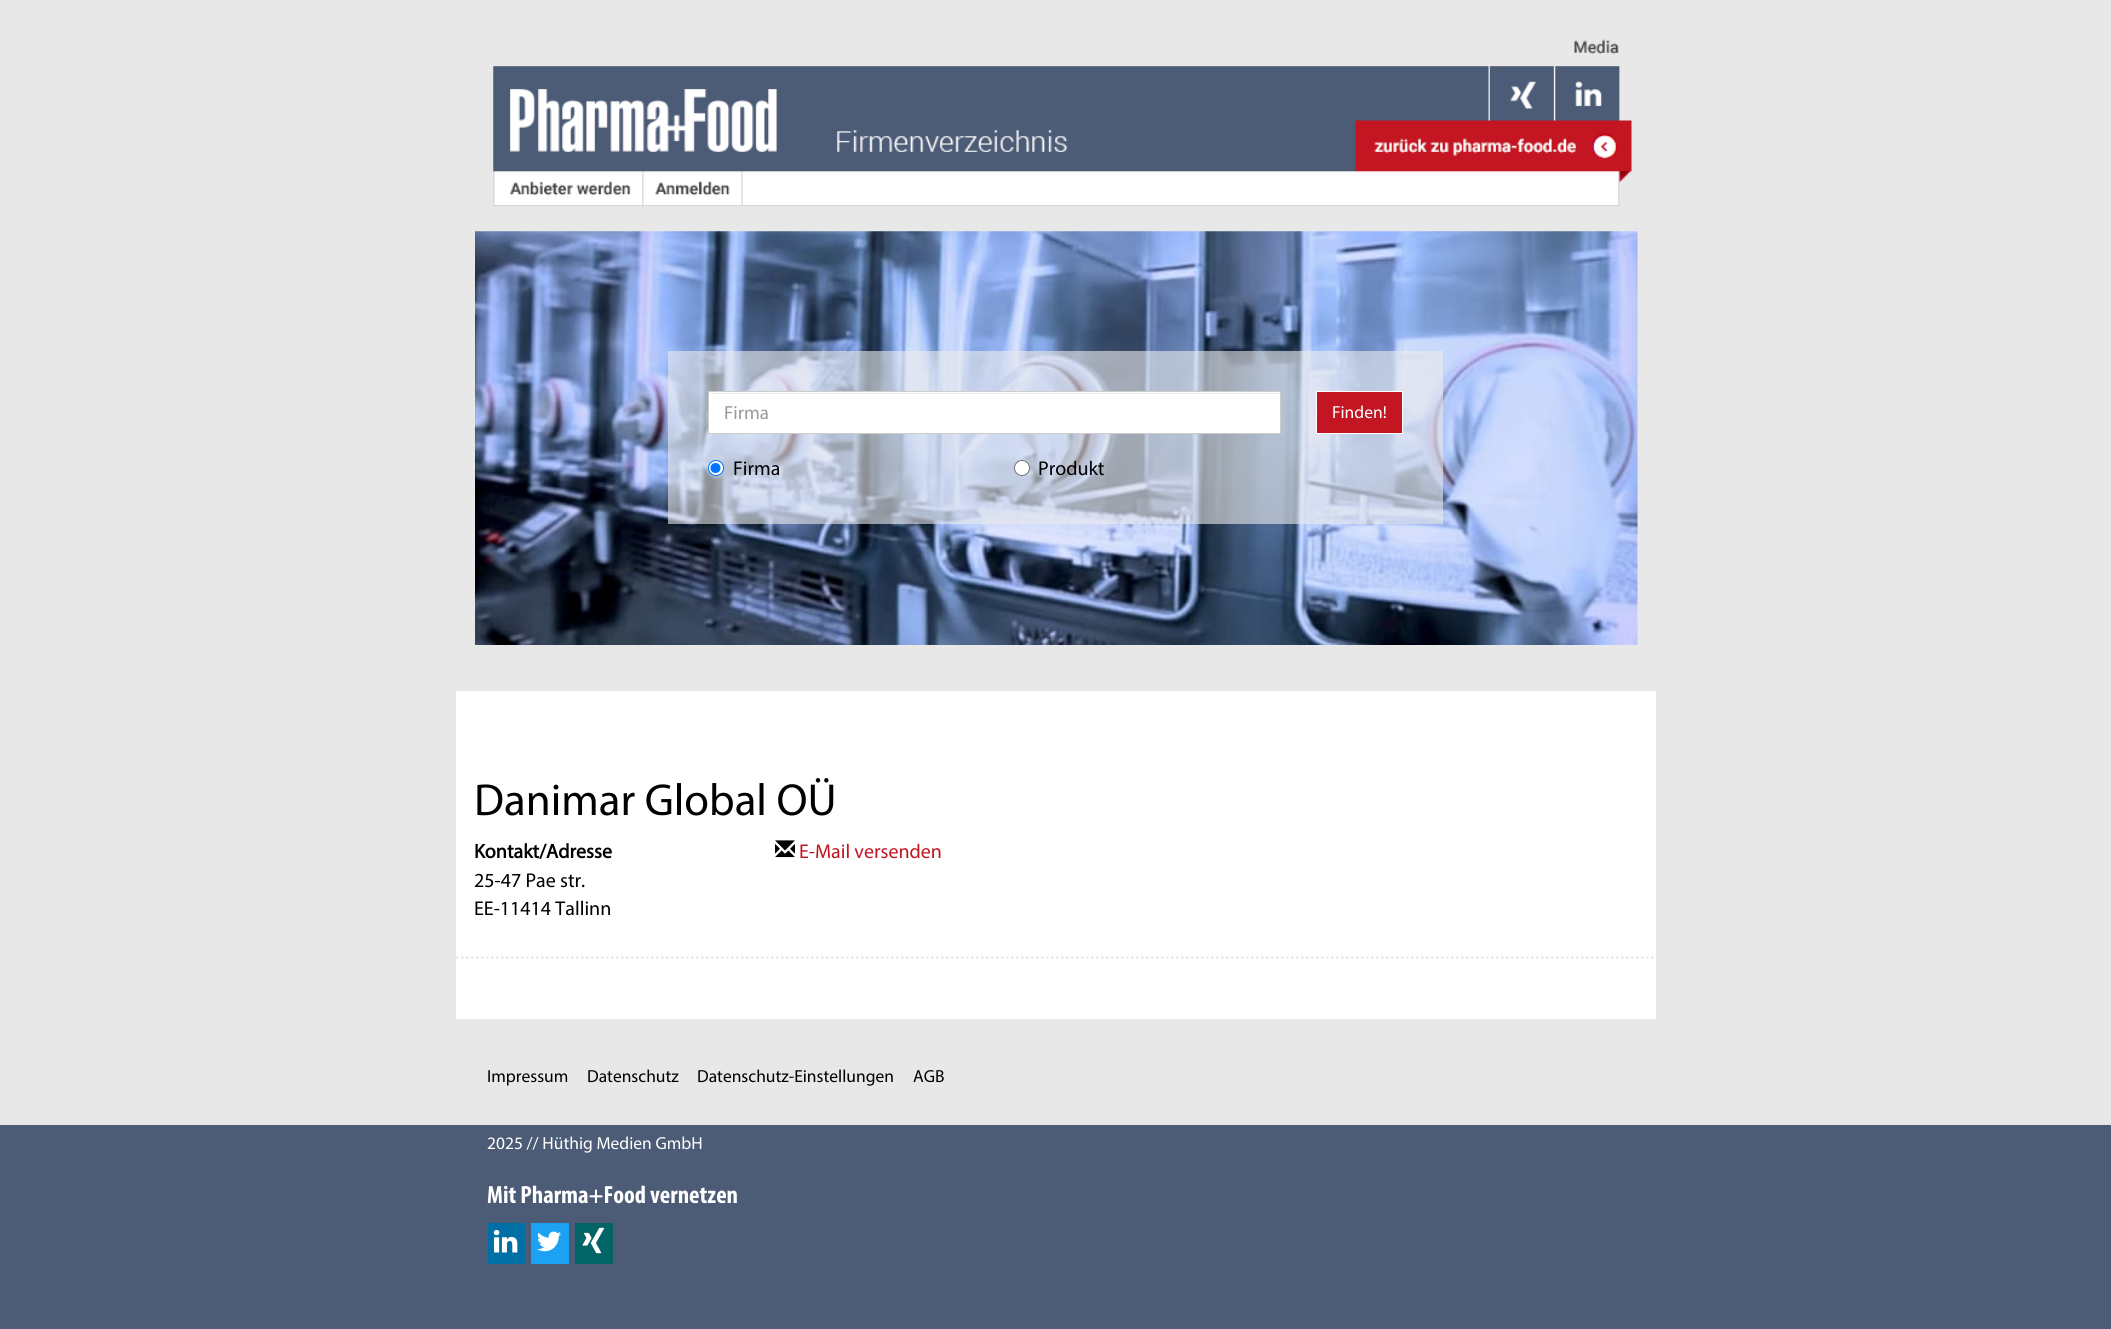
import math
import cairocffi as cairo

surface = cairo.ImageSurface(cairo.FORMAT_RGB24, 2111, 1329)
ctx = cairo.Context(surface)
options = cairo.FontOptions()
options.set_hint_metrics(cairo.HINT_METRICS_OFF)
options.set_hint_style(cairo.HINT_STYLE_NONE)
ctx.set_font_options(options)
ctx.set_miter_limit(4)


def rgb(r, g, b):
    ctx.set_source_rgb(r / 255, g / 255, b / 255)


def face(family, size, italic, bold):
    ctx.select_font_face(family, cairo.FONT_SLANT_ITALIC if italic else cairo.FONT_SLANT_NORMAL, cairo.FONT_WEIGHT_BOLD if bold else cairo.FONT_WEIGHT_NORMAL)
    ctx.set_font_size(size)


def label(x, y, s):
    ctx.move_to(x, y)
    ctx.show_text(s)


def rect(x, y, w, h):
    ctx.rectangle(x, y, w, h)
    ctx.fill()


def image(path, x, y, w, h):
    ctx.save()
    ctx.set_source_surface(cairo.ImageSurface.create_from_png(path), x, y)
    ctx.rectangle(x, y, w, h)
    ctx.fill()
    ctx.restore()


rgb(232, 232, 232)
ctx.paint()
image('image0.png', 493, 39, 1139, 168)
image('image1.png', 475, 231, 1163, 414)
ctx.set_source_rgba(0.918, 0.918, 0.918, 0.6)
rect(668, 351, 775, 173)
rgb(255, 255, 255)
rect(709, 392, 571, 41)
rgb(236, 236, 236)
rect(709, 393, 571, 1)
ctx.rectangle(708.5, 391.5, 572, 42)
rgb(204, 204, 204)
ctx.set_line_width(1)
ctx.stroke()
face('Myriad', 19, 0, 0)
rgb(153, 153, 153)
label(724, 419, 'Firma')
rgb(195, 22, 34)
ctx.rectangle(1316.5, 391.5, 86, 42)
ctx.fill_preserve()
rgb(255, 255, 255)
ctx.stroke()
face('Myriad', 17.5, 0, 0)
label(1332, 418, 'Finden!')
ctx.new_path()
ctx.arc(716, 468, 7.5, 0, 2 * math.pi)
ctx.fill_preserve()
rgb(0, 117, 255)
ctx.stroke()
ctx.arc(715.5, 468, 5, 0, 2 * math.pi)
ctx.fill()
face('Myriad', 20, 0, 0)
rgb(0, 0, 0)
label(733, 475, 'Firma')
rgb(255, 255, 255)
ctx.new_path()
ctx.arc(1022, 468, 7.5, 0, 2 * math.pi)
ctx.fill_preserve()
rgb(118, 118, 118)
ctx.stroke()
rgb(0, 0, 0)
label(1038, 475, 'Produkt')
rgb(255, 255, 255)
rect(456, 691, 1200, 328)
face('Myriad', 45, 0, 0)
rgb(0, 0, 0)
label(474, 815, 'Danimar Global OÜ')
face('Myriad', 20, 0, 1)
label(474, 858, 'Kontakt/Adresse')
face('Myriad', 20, 0, 0)
label(474, 887, '25-47 Pae str.')
label(474, 915, 'EE-11414 Tallinn')
image('image2.png', 775, 840, 20, 18)
rgb(195, 22, 34)
label(799, 858, 'E-Mail versenden')
ctx.new_path()
ctx.move_to(456, 957.5)
ctx.line_to(1656, 957.5)
rgb(232, 232, 232)
ctx.set_line_width(2.5)
ctx.set_dash([2.5, 2.5])
ctx.stroke()
rgb(76, 91, 118)
rect(0, 1125, 2111, 204)
face('Myriad', 17.5, 0, 0)
rgb(0, 0, 0)
label(487, 1082, 'Impressum')
label(587, 1082, 'Datenschutz')
label(697, 1082, 'Datenschutz-Einstellungen')
label(913, 1082, 'AGB')
rgb(255, 255, 255)
label(487, 1149, '2025 // Hüthig Medien GmbH')
face('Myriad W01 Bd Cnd', 25, 0, 1)
label(487, 1203, 'Mit Pharma+Food vernetzen')
rgb(0, 111, 166)
rect(488, 1223, 37, 41)
image('image3.png', 493, 1230, 25, 23)
rgb(29, 161, 242)
rect(531, 1223, 38, 41)
image('image4.png', 537, 1231, 24, 21)
rgb(2, 100, 102)
rect(575, 1223, 38, 41)
image('image5.png', 582, 1227, 23, 27)
surface.write_to_png('render.png')
